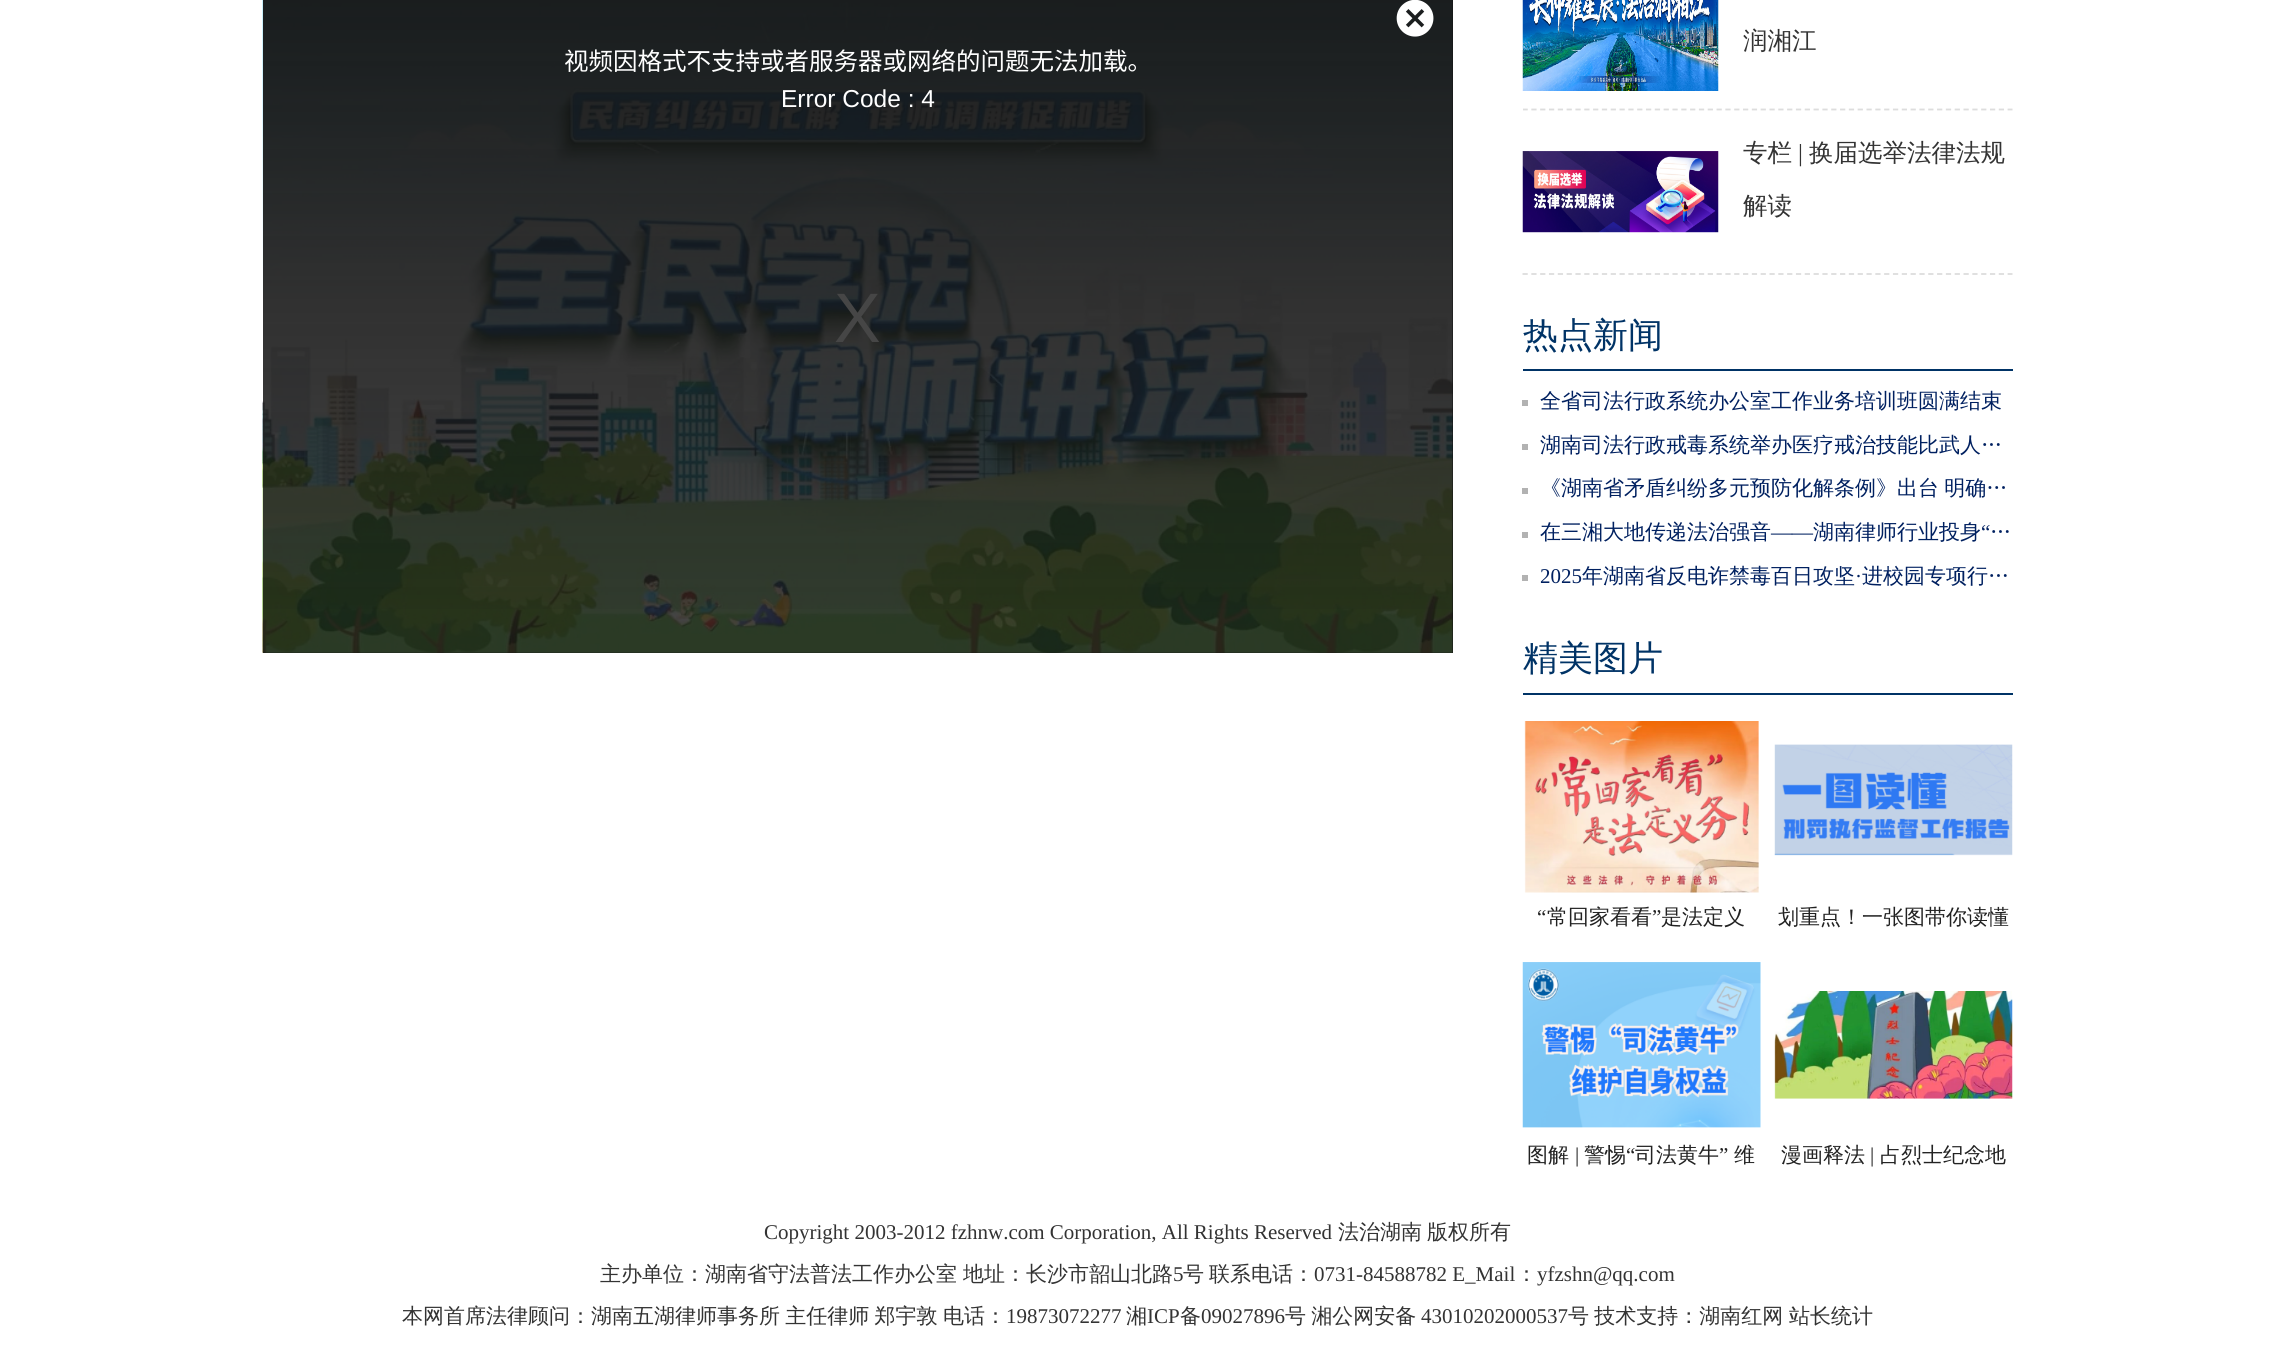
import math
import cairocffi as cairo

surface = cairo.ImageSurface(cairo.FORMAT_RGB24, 2274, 1348)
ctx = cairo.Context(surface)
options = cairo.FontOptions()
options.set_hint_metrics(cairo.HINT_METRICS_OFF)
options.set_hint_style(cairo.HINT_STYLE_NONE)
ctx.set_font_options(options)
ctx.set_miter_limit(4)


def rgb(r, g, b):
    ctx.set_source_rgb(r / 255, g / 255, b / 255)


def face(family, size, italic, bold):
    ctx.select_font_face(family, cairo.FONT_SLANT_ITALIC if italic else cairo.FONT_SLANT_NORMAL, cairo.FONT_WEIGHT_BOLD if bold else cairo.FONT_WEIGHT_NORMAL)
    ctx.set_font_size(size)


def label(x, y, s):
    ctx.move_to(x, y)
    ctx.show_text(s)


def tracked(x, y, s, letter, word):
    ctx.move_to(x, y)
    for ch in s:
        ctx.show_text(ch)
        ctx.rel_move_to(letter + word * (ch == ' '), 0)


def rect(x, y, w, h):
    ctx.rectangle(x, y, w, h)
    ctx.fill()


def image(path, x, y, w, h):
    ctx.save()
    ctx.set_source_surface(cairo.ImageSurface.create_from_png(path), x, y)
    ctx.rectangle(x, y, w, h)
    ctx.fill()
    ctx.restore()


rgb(255, 255, 255)
ctx.paint()
rgb(19, 19, 19)
rect(263, 0, 1190, 653)
image('image0.png', 262, 0, 1191, 653)
gradient = cairo.LinearGradient(858, -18, 858, 653)
gradient.add_color_stop_rgba(0, 0.075, 0.075, 0.075, 0.8)
gradient.add_color_stop_rgba(1, 0.075, 0.075, 0.075, 0)
ctx.set_source(gradient)
rect(263, 0, 1190, 609)
image('image1.png', 1396, 0, 38, 37)
face('Noto Sans CJK SC', 24.5, 0, 0)
rgb(255, 255, 255)
label(564, 70, '视频因格式不支持或者服务器或网络的问题无法加载。')
face('Liberation Sans', 24.5, 0, 0)
label(781, 107, 'Error Code : 4')
face('Liberation Sans', 70, 0, 0)
rgb(70, 70, 70)
label(834, 342, 'X')
ctx.save()
ctx.rectangle(1523, 0, 490, 275)
ctx.clip()
ctx.new_path()
ctx.move_to(1522.5, 109.5)
ctx.line_to(2012.5, 109.5)
rgb(221, 221, 221)
ctx.set_line_width(1.8)
ctx.set_dash([5.25, 3.57])
ctx.stroke()
ctx.restore()
image('image2.png', 1522, 0, 197, 91)
face('WenQuanYi Zen Hei Medium', 24.5, 0, 0)
rgb(51, 51, 51)
label(1743, 49, '润湘江')
ctx.new_path()
ctx.move_to(1522.5, 274)
ctx.line_to(2012.5, 274)
rgb(221, 221, 221)
ctx.set_line_width(1.8)
ctx.set_dash([5.25, 3.57])
ctx.stroke()
image('image3.png', 1522, 151, 197, 82)
rgb(51, 51, 51)
label(1743, 161, '专栏')
face('Liberation Serif', 24.5, 0, 0)
label(1798, 161, '|')
face('WenQuanYi Zen Hei Medium', 24.5, 0, 0)
label(1809, 161, '换届选举法律法规')
label(1743, 214, '解读')
rgb(0, 51, 102)
rect(1523, 369, 490, 2)
face('WenQuanYi Zen Hei Medium', 35, 0, 0)
label(1523, 347, '热点新闻')
rgb(178, 178, 178)
rect(1522, 400, 6, 6)
face('WenQuanYi Zen Hei Medium', 21, 0, 0)
rgb(0, 32, 96)
label(1540, 408, '全省司法行政系统办公室工作业务培训班圆满结束')
rgb(178, 178, 178)
rect(1522, 444, 6, 6)
rgb(0, 32, 96)
label(1540, 452, '湖南司法行政戒毒系统举办医疗戒治技能比武人…')
rgb(178, 178, 178)
rect(1522, 488, 6, 6)
rgb(0, 32, 96)
tracked(1540, 495, '《湖南省矛盾纠纷多元预防化解条例》出台 明确…', 0, -1)
rgb(178, 178, 178)
rect(1522, 532, 6, 6)
rgb(0, 32, 96)
label(1540, 539, '在三湘大地传递法治强音')
face('Liberation Serif', 21, 0, 0)
label(1771, 539, '——')
face('WenQuanYi Zen Hei Medium', 21, 0, 0)
label(1813, 539, '湖南律师行业投身')
face('Liberation Serif', 21, 0, 0)
label(1981, 539, '“')
face('WenQuanYi Zen Hei Medium', 21, 0, 0)
label(1990, 539, '…')
rgb(178, 178, 178)
rect(1522, 575, 6, 6)
face('Liberation Serif', 21, 0, 0)
rgb(0, 32, 96)
label(1540, 583, '2025')
face('WenQuanYi Zen Hei Medium', 21, 0, 0)
label(1582, 583, '年湖南省反电诈禁毒百日攻坚')
face('Liberation Serif', 21, 0, 0)
label(1855, 583, '·')
face('WenQuanYi Zen Hei Medium', 21, 0, 0)
label(1862, 583, '进校园专项行…')
rgb(0, 51, 102)
rect(1523, 693, 490, 2)
face('WenQuanYi Zen Hei Medium', 35, 0, 0)
label(1523, 670, '精美图片')
image('image4.png', 1524, 721, 235, 172)
face('Liberation Serif', 21, 0, 0)
rgb(34, 34, 34)
label(1537, 924, '“')
face('WenQuanYi Zen Hei Medium', 21, 0, 0)
label(1547, 924, '常回家看看')
face('Liberation Serif', 21, 0, 0)
label(1652, 924, '”')
face('WenQuanYi Zen Hei Medium', 21, 0, 0)
label(1661, 924, '是法定义')
image('image5.png', 1774, 744, 239, 112)
label(1778, 924, '划重点！一张图带你读懂')
image('image6.png', 1522, 962, 239, 166)
label(1527, 1162, '图解')
face('Liberation Serif', 21, 0, 0)
label(1575, 1162, '|')
face('WenQuanYi Zen Hei Medium', 21, 0, 0)
label(1584, 1162, '警惕')
face('Liberation Serif', 21, 0, 0)
label(1626, 1162, '“')
face('WenQuanYi Zen Hei Medium', 21, 0, 0)
label(1635, 1162, '司法黄牛')
face('Liberation Serif', 21, 0, 0)
label(1719, 1162, '”')
face('WenQuanYi Zen Hei Medium', 21, 0, 0)
label(1734, 1162, '维')
image('image7.png', 1774, 991, 239, 108)
label(1781, 1162, '漫画释法')
face('Liberation Serif', 21, 0, 0)
label(1870, 1162, '|')
face('WenQuanYi Zen Hei Medium', 21, 0, 0)
label(1880, 1162, '占烈士纪念地')
face('Liberation Serif', 21, 0, 0)
rgb(51, 51, 51)
label(764, 1239, 'Copyright 2003-2012 fzhnw.com Corporation, All Rights Reserved')
face('WenQuanYi Zen Hei Medium', 21, 0, 0)
label(1338, 1239, '法治湖南')
label(1427, 1239, '版权所有')
label(600, 1281, '主办单位：湖南省守法普法工作办公室')
label(963, 1281, '地址：长沙市韶山北路')
face('Liberation Serif', 21, 0, 0)
label(1173, 1281, '5')
face('WenQuanYi Zen Hei Medium', 21, 0, 0)
label(1183, 1281, '号')
label(1209, 1281, '联系电话：')
face('Liberation Serif', 21, 0, 0)
label(1314, 1281, '0731-84588782 E_Mail')
face('WenQuanYi Zen Hei Medium', 21, 0, 0)
label(1516, 1281, '：')
face('Liberation Serif', 21, 0, 0)
label(1537, 1281, 'yfzshn@qq.com')
face('WenQuanYi Zen Hei Medium', 21, 0, 0)
tracked(402, 1323, '本网首席法律顾问：湖南五湖律师事务所 主任律师 郑宇敦 电话：', 0, -1)
face('Liberation Serif', 21, 0, 0)
label(1006, 1323, '19873072277')
face('WenQuanYi Zen Hei Medium', 21, 0, 0)
label(1126, 1323, '湘')
face('Liberation Serif', 21, 0, 0)
label(1147, 1323, 'ICP')
face('WenQuanYi Zen Hei Medium', 21, 0, 0)
label(1180, 1323, '备')
face('Liberation Serif', 21, 0, 0)
label(1201, 1323, '09027896')
face('WenQuanYi Zen Hei Medium', 21, 0, 0)
tracked(1285, 1323, '号 湘公网安备', 0, -1)
face('Liberation Serif', 21, 0, 0)
label(1421, 1323, '43010202000537')
face('WenQuanYi Zen Hei Medium', 21, 0, 0)
tracked(1568, 1323, '号 技术支持：湖南红网', 0, -1)
label(1789, 1323, '站长统计')
surface.write_to_png('render.png')
